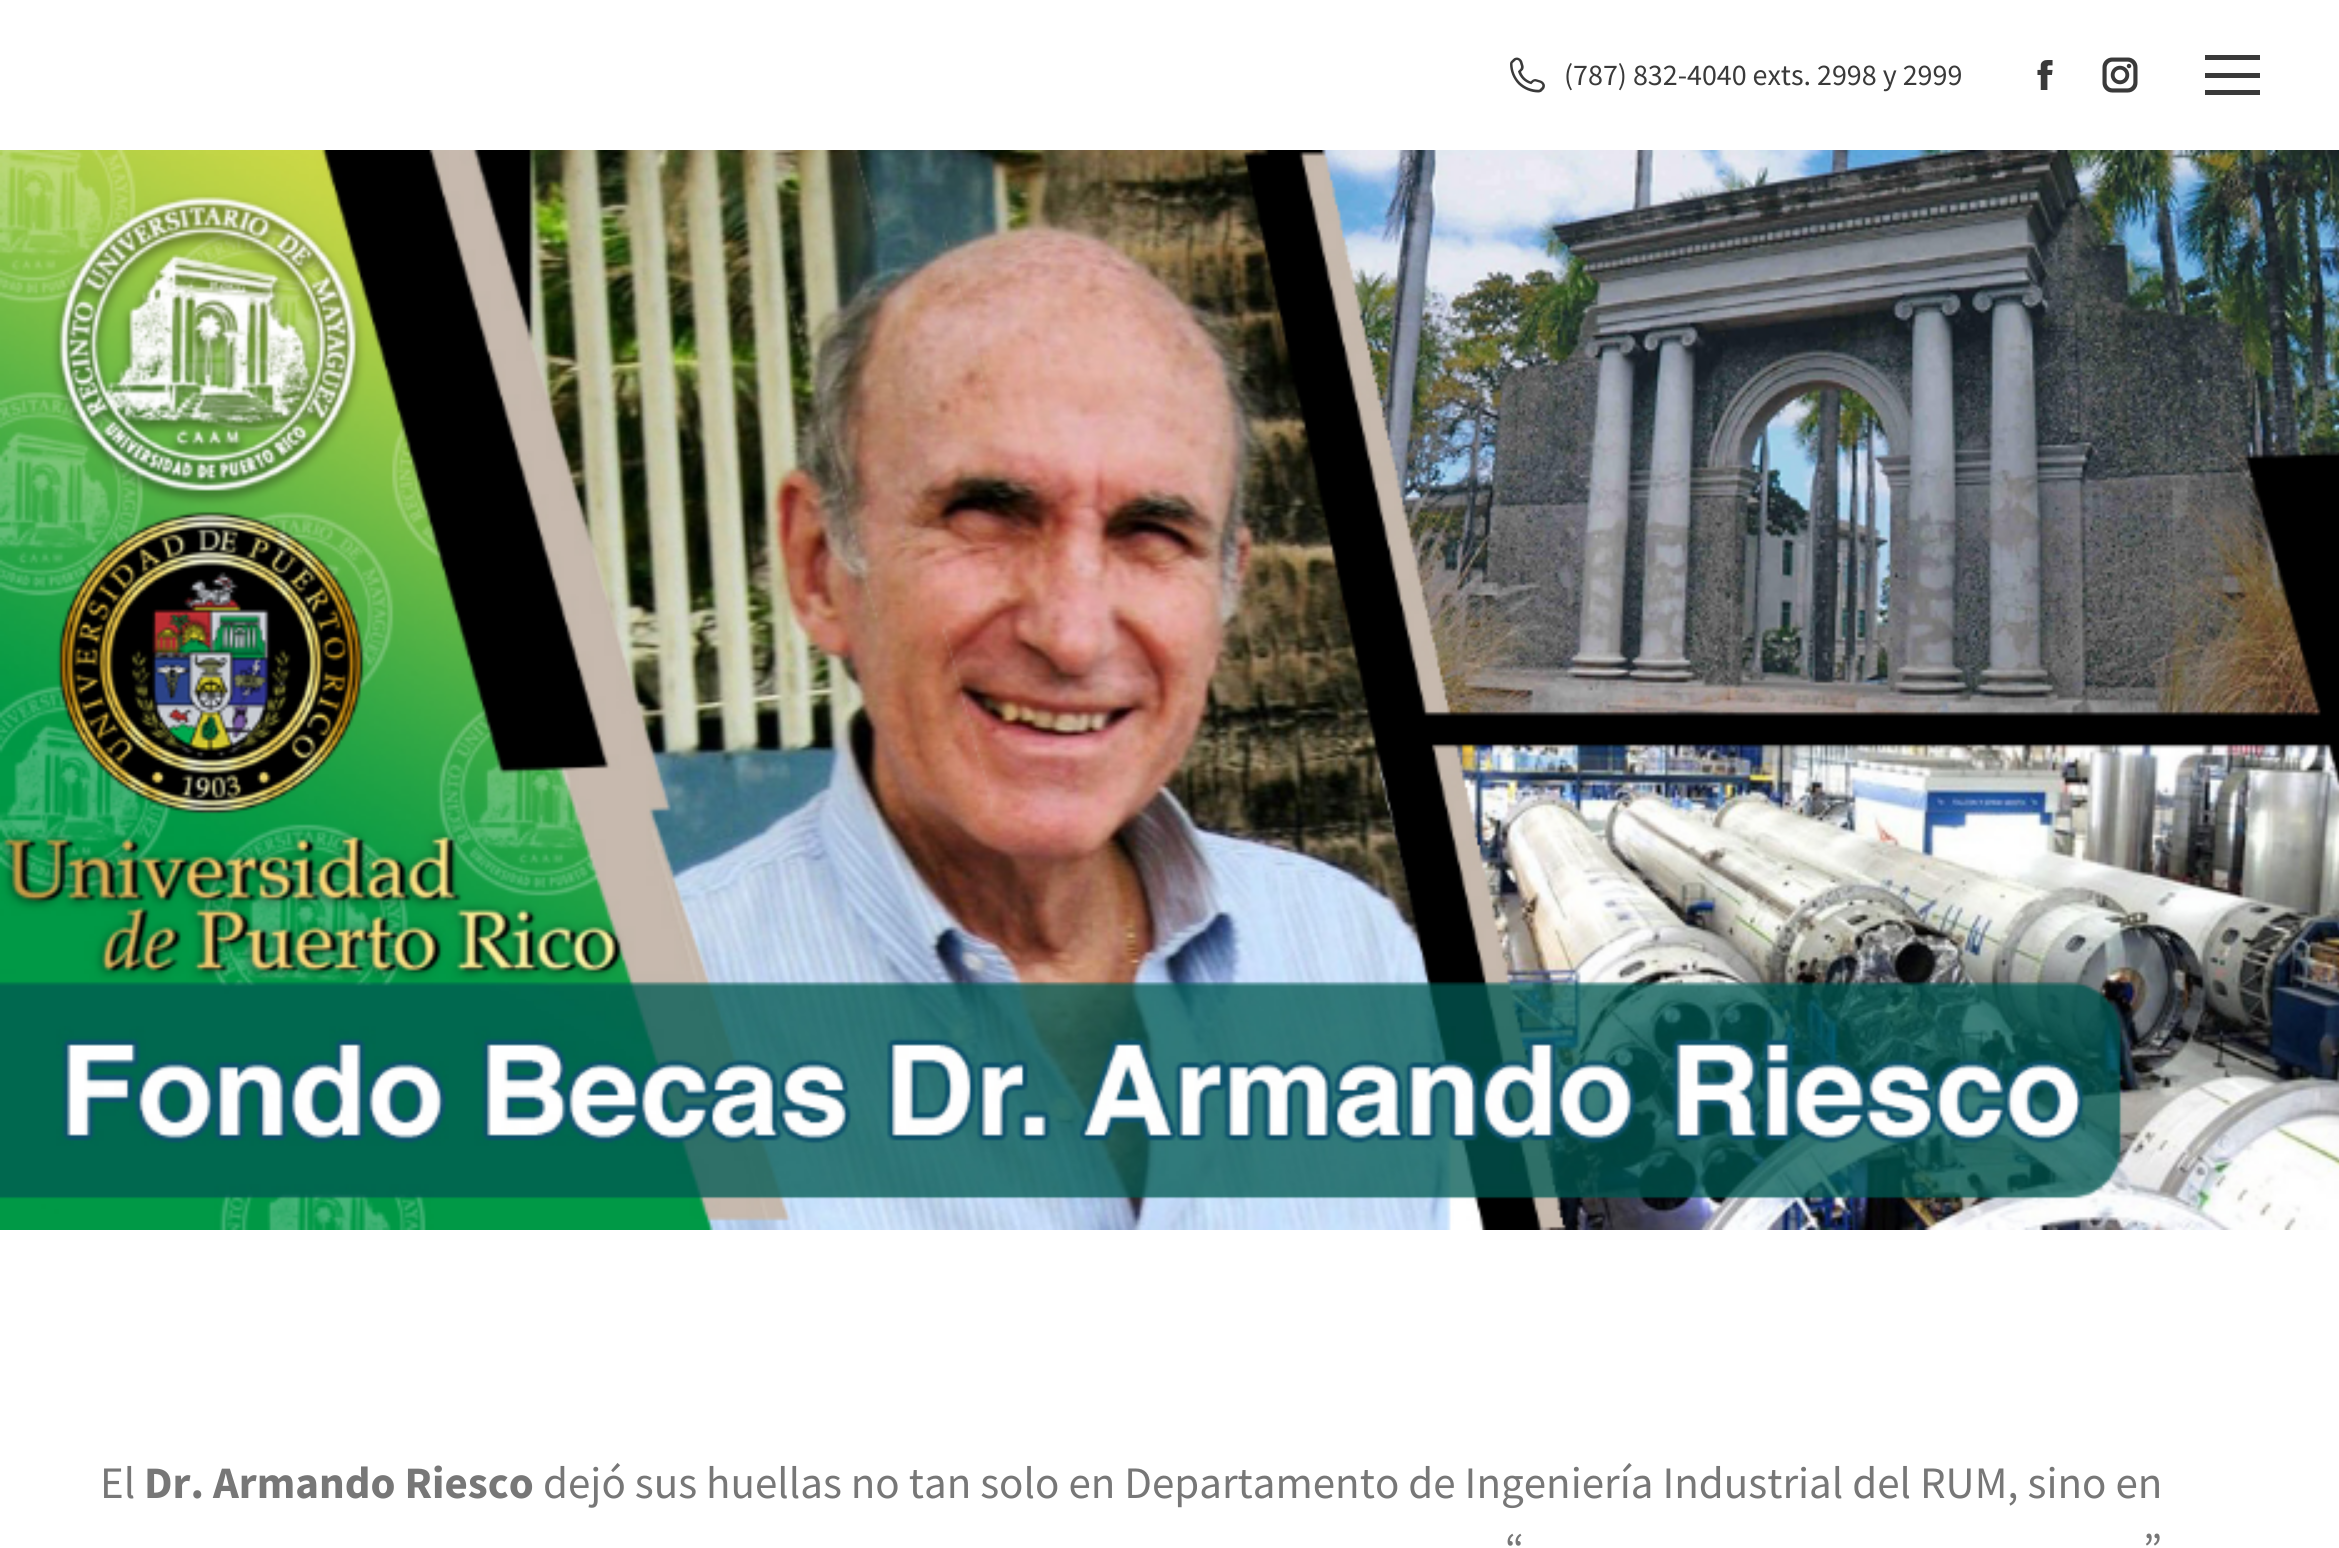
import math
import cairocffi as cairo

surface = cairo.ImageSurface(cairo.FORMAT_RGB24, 2339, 1548)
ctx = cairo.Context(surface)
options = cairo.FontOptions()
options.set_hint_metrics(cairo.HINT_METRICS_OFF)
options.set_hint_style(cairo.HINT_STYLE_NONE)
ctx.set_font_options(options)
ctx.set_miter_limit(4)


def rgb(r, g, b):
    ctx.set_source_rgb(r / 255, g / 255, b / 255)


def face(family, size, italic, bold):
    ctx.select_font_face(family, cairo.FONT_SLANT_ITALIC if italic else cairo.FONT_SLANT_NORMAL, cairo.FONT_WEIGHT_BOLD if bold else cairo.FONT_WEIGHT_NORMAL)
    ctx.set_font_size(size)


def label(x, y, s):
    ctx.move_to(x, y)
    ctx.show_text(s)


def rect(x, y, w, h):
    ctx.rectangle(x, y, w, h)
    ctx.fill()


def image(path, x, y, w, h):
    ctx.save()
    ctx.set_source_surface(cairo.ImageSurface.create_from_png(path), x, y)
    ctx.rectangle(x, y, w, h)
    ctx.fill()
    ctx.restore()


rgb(255, 255, 255)
ctx.paint()
image('image0.png', 1510, 57, 35, 36)
face('Source Sans Pro', 30, 0, 0)
rgb(58, 58, 58)
label(1564, 85, '(787) 832-4040 exts. 2998 y 2999')
image('image1.png', 2037, 60, 16, 30)
image('image2.png', 2102, 57, 36, 36)
rect(2205, 55, 55, 5)
rect(2205, 73, 55, 5)
rect(2205, 90, 55, 5)
image('image3.png', 0, 150, 2339, 1080)
face('Source Sans Pro', 45, 0, 0)
rgb(119, 119, 119)
label(100, 1498, 'El')
face('Source Sans Pro', 45, 0, 1)
label(144, 1498, 'Dr. Armando Riesco')
face('Source Sans Pro', 45, 0, 0)
label(543, 1498, 'dejó sus huellas no tan solo en Departamento de Ingeniería Industrial del RUM, sino en')
label(1505, 1565, '“')
label(2143, 1565, '”')
surface.write_to_png('render.png')
